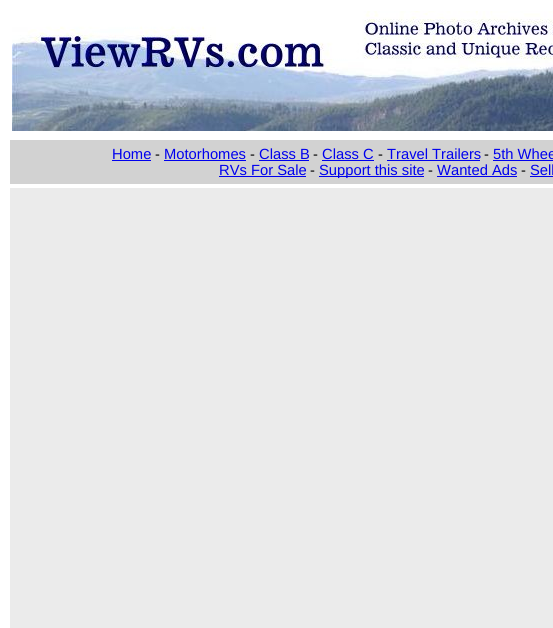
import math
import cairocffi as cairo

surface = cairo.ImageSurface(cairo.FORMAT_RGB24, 553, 628)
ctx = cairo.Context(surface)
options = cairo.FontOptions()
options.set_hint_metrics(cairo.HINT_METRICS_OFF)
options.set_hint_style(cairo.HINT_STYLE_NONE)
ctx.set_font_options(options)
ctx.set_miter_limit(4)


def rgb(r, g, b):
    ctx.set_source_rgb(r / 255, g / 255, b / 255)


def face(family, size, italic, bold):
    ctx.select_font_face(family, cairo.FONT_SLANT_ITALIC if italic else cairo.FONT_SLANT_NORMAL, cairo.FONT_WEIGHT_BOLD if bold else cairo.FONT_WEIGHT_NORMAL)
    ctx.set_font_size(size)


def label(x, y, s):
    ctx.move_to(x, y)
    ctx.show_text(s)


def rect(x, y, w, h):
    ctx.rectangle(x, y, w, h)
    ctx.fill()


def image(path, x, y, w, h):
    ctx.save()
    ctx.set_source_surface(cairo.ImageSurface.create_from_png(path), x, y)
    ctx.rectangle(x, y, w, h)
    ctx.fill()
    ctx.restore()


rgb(255, 255, 255)
ctx.paint()
image('image0.png', 12, 11, 541, 120)
rgb(210, 210, 210)
rect(10, 140, 543, 44)
face('Liberation Sans', 14.75, 0, 0)
rgb(0, 0, 238)
label(112, 159, 'Home')
rect(112, 160, 39, 1)
rgb(0, 0, 0)
label(155, 159, '-')
rgb(0, 0, 238)
label(164, 159, 'Motorhomes')
rect(164, 160, 82, 1)
rgb(0, 0, 0)
label(250, 159, '-')
rgb(0, 0, 238)
label(259, 159, 'Class B')
rect(259, 160, 50, 1)
rgb(0, 0, 0)
label(313, 159, '-')
rgb(0, 0, 238)
label(322, 159, 'Class C')
rect(322, 160, 52, 1)
rgb(0, 0, 0)
label(378, 159, '-')
rgb(0, 0, 238)
label(387, 159, 'Travel Trailers')
rect(387, 160, 93, 1)
rgb(0, 0, 0)
label(484, 159, '-')
rgb(0, 0, 238)
label(493, 159, '5th Whee')
rect(493, 160, 60, 1)
label(219, 175, 'RVs For Sale')
rect(219, 176, 87, 1)
rgb(0, 0, 0)
label(310, 175, '-')
rgb(0, 0, 238)
rect(319, 176, 105, 1)
label(319, 175, 'Support this site')
rgb(0, 0, 0)
label(428, 175, '-')
rgb(0, 0, 238)
label(437, 175, 'Wanted Ads')
rect(437, 176, 80, 1)
rgb(0, 0, 0)
label(521, 175, '-')
rgb(0, 0, 238)
label(530, 175, 'Sell')
rect(530, 176, 23, 1)
rgb(235, 235, 235)
rect(10, 188, 543, 440)
surface.write_to_png('render.png')
